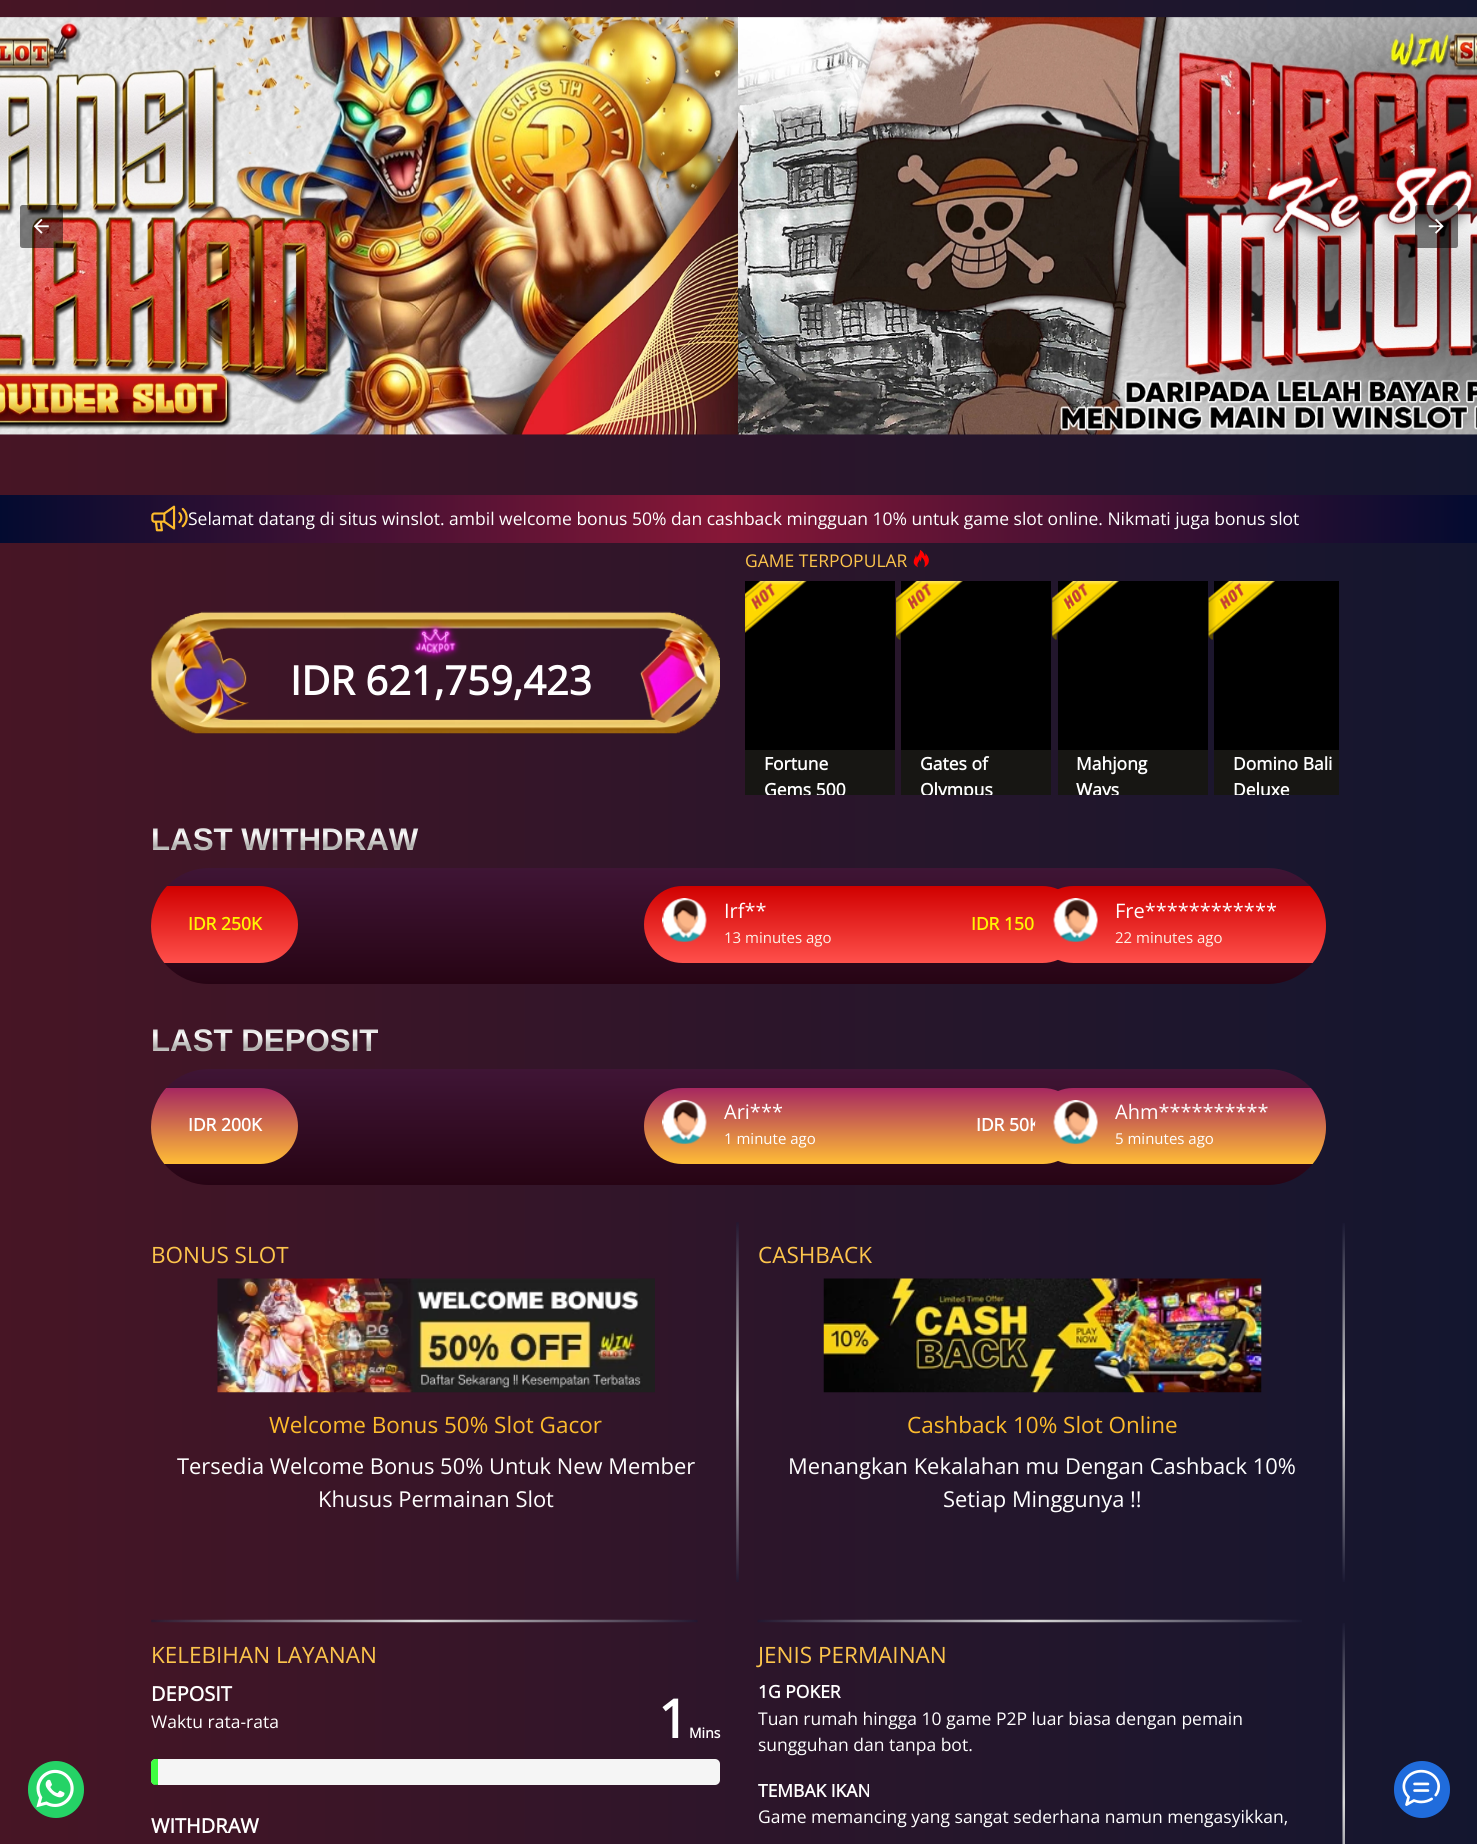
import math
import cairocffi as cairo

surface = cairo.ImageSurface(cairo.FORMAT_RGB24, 1477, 1844)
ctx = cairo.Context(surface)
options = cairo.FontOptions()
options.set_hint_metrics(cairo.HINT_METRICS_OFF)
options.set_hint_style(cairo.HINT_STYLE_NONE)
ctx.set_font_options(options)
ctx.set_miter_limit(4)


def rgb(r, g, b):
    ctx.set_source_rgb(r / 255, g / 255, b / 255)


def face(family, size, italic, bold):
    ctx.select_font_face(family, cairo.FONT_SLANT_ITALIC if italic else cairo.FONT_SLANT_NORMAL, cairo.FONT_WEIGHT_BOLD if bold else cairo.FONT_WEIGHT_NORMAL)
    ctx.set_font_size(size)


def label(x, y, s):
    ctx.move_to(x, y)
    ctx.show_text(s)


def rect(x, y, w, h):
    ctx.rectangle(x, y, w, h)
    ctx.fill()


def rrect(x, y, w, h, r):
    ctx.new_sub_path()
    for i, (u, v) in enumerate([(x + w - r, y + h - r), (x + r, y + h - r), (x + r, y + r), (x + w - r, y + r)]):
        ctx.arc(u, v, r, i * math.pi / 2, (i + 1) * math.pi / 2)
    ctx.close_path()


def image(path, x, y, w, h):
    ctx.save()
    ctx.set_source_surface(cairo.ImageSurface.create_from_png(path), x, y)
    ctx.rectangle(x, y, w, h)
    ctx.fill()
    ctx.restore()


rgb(255, 255, 255)
ctx.paint()
gradient = cairo.LinearGradient(0, 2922, 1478, 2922)
gradient.add_color_stop_rgba(0, 0.278, 0.082, 0.145, 1)
gradient.add_color_stop_rgba(1, 0.075, 0.086, 0.184, 1)
ctx.set_source(gradient)
rect(0, 0, 1477, 1844)
image('image0.png', 0, 17, 739, 418)
image('image1.png', 738, 17, 739, 418)
ctx.set_source_rgba(0, 0, 0, 0.5)
rrect(20, 205, 43, 43, 2.5)
ctx.fill()
image('image2.png', 33, 218, 16, 16)
rrect(1415, 205, 43, 43, 2.5)
ctx.fill()
image('image3.png', 1428, 218, 16, 16)
gradient = cairo.LinearGradient(0, 519, 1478, 519)
gradient.add_color_stop_rgba(0, 0.012, 0.043, 0.188, 1)
gradient.add_color_stop_rgba(0.49, 0.529, 0.09, 0.216, 1)
gradient.add_color_stop_rgba(1, 0.012, 0.043, 0.188, 1)
ctx.set_source(gradient)
rect(0, 495, 1477, 48)
image('image4.png', 151, 505, 37, 27)
face('Open Sans', 17.5, 0, 0)
rgb(255, 255, 255)
label(188, 525, 'Selamat datang di situs winslot. ambil welcome bonus 50% dan cashback mingguan 10% untuk game slot online. Nikmati juga bonus slot')
image('image5.png', 151, 611, 569, 123)
face('Open Sans', 40, 0, 1)
label(290, 695, 'IDR 621,759,423')
face('Open Sans', 17.5, 0, 0)
rgb(253, 197, 76)
label(745, 567, 'GAME TERPOPULAR')
image('image6.png', 913, 550, 16, 18)
rgb(0, 0, 0)
rect(745, 581, 150, 169)
image('image7.png', 745, 581, 62, 52)
rect(901, 581, 150, 169)
image('image8.png', 896, 581, 67, 59)
rect(1058, 581, 150, 169)
image('image9.png', 1052, 581, 67, 59)
rect(1214, 581, 125, 169)
image('image10.png', 1208, 581, 67, 59)
image('image11.png', 745, 581, 62, 52)
rgb(23, 22, 19)
rect(745, 750, 150, 45)
face('Open Sans', 17.5, 0, 1)
rgb(255, 255, 255)
label(764, 770, 'Fortune')
ctx.save()
ctx.rectangle(745, 581, 594, 214)
ctx.clip()
label(764, 796, 'Gems 500')
ctx.restore()
image('image12.png', 896, 581, 67, 59)
rgb(23, 22, 19)
rect(901, 750, 150, 45)
rgb(255, 255, 255)
label(920, 770, 'Gates of')
ctx.save()
ctx.rectangle(745, 581, 594, 214)
ctx.clip()
label(920, 796, 'Olympus')
ctx.restore()
image('image13.png', 1052, 581, 67, 59)
rgb(23, 22, 19)
rect(1058, 750, 150, 45)
rgb(255, 255, 255)
label(1076, 770, 'Mahjong')
ctx.save()
ctx.rectangle(745, 581, 594, 214)
ctx.clip()
label(1076, 796, 'Ways')
ctx.restore()
image('image14.png', 1208, 581, 67, 59)
rgb(23, 22, 19)
rect(1214, 750, 125, 45)
rgb(255, 255, 255)
label(1233, 770, 'Domino Bali')
ctx.save()
ctx.rectangle(745, 581, 594, 214)
ctx.clip()
label(1233, 796, 'Deluxe')
ctx.restore()
face('Liberation Sans', 31.25, 0, 1)
gradient = cairo.LinearGradient(739, 820, 739, 858)
gradient.add_color_stop_rgba(0, 0.647, 0.639, 0.631, 1)
gradient.add_color_stop_rgba(0.37, 0.996, 0.996, 0.996, 1)
gradient.add_color_stop_rgba(0.7, 0.678, 0.671, 0.663, 1)
gradient.add_color_stop_rgba(1, 1, 1, 1, 1)
ctx.set_source(gradient)
label(151, 850, 'LAST WITHDRAW')
gradient = cairo.LinearGradient(739, 868, 739, 984)
gradient.add_color_stop_rgba(0, 0.247, 0.082, 0.208, 1)
gradient.add_color_stop_rgba(1, 0.153, 0.016, 0.078, 1)
ctx.set_source(gradient)
rrect(151, 868, 1175, 116, 58)
ctx.fill()
ctx.save()
rrect(151, 868, 1175, 116, 58)
ctx.clip()
gradient = cairo.LinearGradient(79, 886, 79, 963)
gradient.add_color_stop_rgba(0, 0.816, 0, 0, 1)
gradient.add_color_stop_rgba(1, 1, 0.314, 0.294, 1)
ctx.set_source(gradient)
ctx.new_path()
ctx.move_to(151, 886)
ctx.line_to(259.5, 886)
ctx.curve_to(281, 886, 298, 903, 298, 924.5)
ctx.curve_to(298, 946, 281, 963, 259.5, 963)
ctx.line_to(151, 963)
ctx.close_path()
ctx.fill()
ctx.restore()
face('Open Sans', 17.5, 0, 1)
rgb(255, 245, 2)
label(188, 930, 'IDR 250K')
gradient = cairo.LinearGradient(863, 886, 863, 963)
gradient.add_color_stop_rgba(0, 0.816, 0, 0, 1)
gradient.add_color_stop_rgba(1, 1, 0.314, 0.294, 1)
ctx.set_source(gradient)
rrect(644, 886, 437, 77, 38.5)
ctx.fill()
image('image15.png', 662, 898, 45, 44)
face('Open Sans', 20, 0, 0)
rgb(255, 255, 255)
label(724, 918, 'Irf**')
face('Open Sans', 15, 0, 0)
rgb(253, 243, 231)
label(724, 943, '13 minutes ago')
face('Open Sans', 17.5, 0, 1)
rgb(255, 245, 2)
label(971, 930, 'IDR 150')
ctx.save()
rrect(151, 868, 1175, 116, 58)
ctx.clip()
gradient = cairo.LinearGradient(1254, 886, 1254, 963)
gradient.add_color_stop_rgba(0, 0.816, 0, 0, 1)
gradient.add_color_stop_rgba(1, 1, 0.314, 0.294, 1)
ctx.set_source(gradient)
ctx.new_path()
ctx.move_to(1073.5, 886)
ctx.line_to(1326, 886)
ctx.line_to(1326, 963)
ctx.line_to(1073.5, 963)
ctx.curve_to(1052, 963, 1035, 946, 1035, 924.5)
ctx.curve_to(1035, 903, 1052, 886, 1073.5, 886)
ctx.close_path()
ctx.fill()
ctx.restore()
image('image16.png', 1053, 898, 45, 44)
face('Open Sans', 20, 0, 0)
rgb(255, 255, 255)
label(1115, 918, 'Fre************')
face('Open Sans', 15, 0, 0)
rgb(253, 243, 231)
label(1115, 943, '22 minutes ago')
face('Liberation Sans', 31.25, 0, 1)
gradient = cairo.LinearGradient(739, 1021, 739, 1059)
gradient.add_color_stop_rgba(0, 0.647, 0.639, 0.631, 1)
gradient.add_color_stop_rgba(0.37, 0.996, 0.996, 0.996, 1)
gradient.add_color_stop_rgba(0.7, 0.678, 0.671, 0.663, 1)
gradient.add_color_stop_rgba(1, 1, 1, 1, 1)
ctx.set_source(gradient)
label(151, 1051, 'LAST DEPOSIT')
gradient = cairo.LinearGradient(739, 1069, 739, 1185)
gradient.add_color_stop_rgba(0, 0.247, 0.082, 0.208, 1)
gradient.add_color_stop_rgba(1, 0.153, 0.016, 0.078, 1)
ctx.set_source(gradient)
rrect(151, 1069, 1175, 116, 58)
ctx.fill()
ctx.save()
rrect(151, 1069, 1175, 116, 58)
ctx.clip()
gradient = cairo.LinearGradient(79, 1088, 79, 1164)
gradient.add_color_stop_rgba(0, 0.651, 0.153, 0.376, 1)
gradient.add_color_stop_rgba(1, 1, 0.741, 0.212, 1)
ctx.set_source(gradient)
ctx.new_path()
ctx.move_to(151, 1088)
ctx.line_to(260, 1088)
ctx.curve_to(281, 1088, 298, 1105, 298, 1126)
ctx.curve_to(298, 1147, 281, 1164, 260, 1164)
ctx.line_to(151, 1164)
ctx.close_path()
ctx.fill()
ctx.restore()
face('Open Sans', 17.5, 0, 1)
rgb(255, 255, 255)
label(188, 1131, 'IDR 200K')
gradient = cairo.LinearGradient(863, 1088, 863, 1164)
gradient.add_color_stop_rgba(0, 0.651, 0.153, 0.376, 1)
gradient.add_color_stop_rgba(1, 1, 0.741, 0.212, 1)
ctx.set_source(gradient)
rrect(644, 1088, 437, 76, 38)
ctx.fill()
image('image17.png', 662, 1100, 45, 44)
face('Open Sans', 20, 0, 0)
rgb(255, 255, 255)
label(724, 1119, 'Ari***')
face('Open Sans', 15, 0, 0)
label(724, 1144, '1 minute ago')
face('Open Sans', 17.5, 0, 1)
label(976, 1131, 'IDR 50K')
ctx.save()
rrect(151, 1069, 1175, 116, 58)
ctx.clip()
gradient = cairo.LinearGradient(1254, 1088, 1254, 1164)
gradient.add_color_stop_rgba(0, 0.651, 0.153, 0.376, 1)
gradient.add_color_stop_rgba(1, 1, 0.741, 0.212, 1)
ctx.set_source(gradient)
ctx.new_path()
ctx.move_to(1073, 1088)
ctx.line_to(1326, 1088)
ctx.line_to(1326, 1164)
ctx.line_to(1073, 1164)
ctx.curve_to(1052, 1164, 1035, 1147, 1035, 1126)
ctx.curve_to(1035, 1105, 1052, 1088, 1073, 1088)
ctx.close_path()
ctx.fill()
ctx.restore()
image('image18.png', 1053, 1100, 45, 44)
face('Open Sans', 20, 0, 0)
label(1115, 1119, 'Ahm**********')
face('Open Sans', 15, 0, 0)
label(1115, 1144, '5 minutes ago')
rgb(37, 211, 102)
rrect(28, 1761, 56, 57, 28)
ctx.fill()
image('image19.png', 36, 1769, 38, 39)
face('Open Sans', 22.5, 0, 0)
rgb(253, 197, 76)
label(151, 1263, 'BONUS SLOT')
image('image20.png', 736, 1222, 3, 360)
image('image21.png', 217, 1278, 438, 115)
rgb(253, 187, 44)
label(269, 1433, 'Welcome Bonus 50% Slot Gacor')
face('Open Sans', 21.9, 0, 0)
rgb(255, 255, 255)
label(177, 1474, 'Tersedia Welcome Bonus 50% Untuk New Member')
label(318, 1507, 'Khusus Permainan Slot')
image('image22.png', 151, 1619, 547, 4)
face('Open Sans', 22.5, 0, 0)
rgb(253, 197, 76)
label(758, 1263, 'CASHBACK')
image('image23.png', 1342, 1223, 3, 359)
image('image24.png', 823, 1278, 439, 115)
rgb(253, 187, 44)
label(907, 1433, 'Cashback 10% Slot Online')
face('Open Sans', 21.9, 0, 0)
rgb(255, 255, 255)
label(788, 1474, 'Menangkan Kekalahan mu Dengan Cashback 10%')
label(943, 1507, 'Setiap Minggunya !!')
image('image25.png', 757, 1619, 545, 4)
face('Open Sans', 22.5, 0, 0)
rgb(253, 197, 76)
label(151, 1663, 'KELEBIHAN LAYANAN')
face('Open Sans', 20, 0, 1)
rgb(255, 255, 255)
label(151, 1701, 'DEPOSIT')
face('Open Sans', 17.5, 0, 0)
label(151, 1728, 'Waktu rata-rata')
face('Open Sans', 53, 0, 1)
label(658, 1738, '1')
face('Open Sans', 14, 0, 1)
label(689, 1738, 'Mins')
rgb(245, 245, 245)
rrect(151, 1759, 569, 26, 5)
ctx.fill()
rgb(64, 254, 65)
ctx.new_path()
ctx.move_to(156, 1759)
ctx.line_to(158, 1759)
ctx.line_to(158, 1785)
ctx.line_to(156, 1785)
ctx.curve_to(153, 1785, 151, 1783, 151, 1780)
ctx.line_to(151, 1764)
ctx.curve_to(151, 1761, 153, 1759, 156, 1759)
ctx.close_path()
ctx.fill()
ctx.save()
rrect(151, 1759, 569, 26, 5)
ctx.clip()
ctx.set_source_rgba(0, 0, 0, 0.15)
rect(151, 1784, 7, 1)
ctx.restore()
face('Open Sans', 20, 0, 1)
rgb(255, 255, 255)
label(151, 1833, 'WITHDRAW')
face('Open Sans', 22.5, 0, 0)
rgb(253, 197, 76)
label(758, 1663, 'JENIS PERMAINAN')
image('image26.png', 1342, 1623, 3, 221)
face('Open Sans', 17.5, 0, 1)
rgb(255, 255, 255)
label(758, 1698, '1G POKER')
face('Open Sans', 17.5, 0, 0)
label(758, 1725, 'Tuan rumah hingga 10 game P2P luar biasa dengan pemain')
label(758, 1751, 'sungguhan dan tanpa bot.')
face('Open Sans', 17.5, 0, 1)
label(758, 1797, 'TEMBAK IKAN')
face('Open Sans', 17.5, 0, 0)
label(758, 1823, 'Game memancing yang sangat sederhana namun mengasyikkan,')
rgb(32, 108, 220)
rrect(1394, 1761, 56, 57, 28)
ctx.fill()
image('image27.png', 1402, 1769, 38, 37)
surface.write_to_png('render.png')
